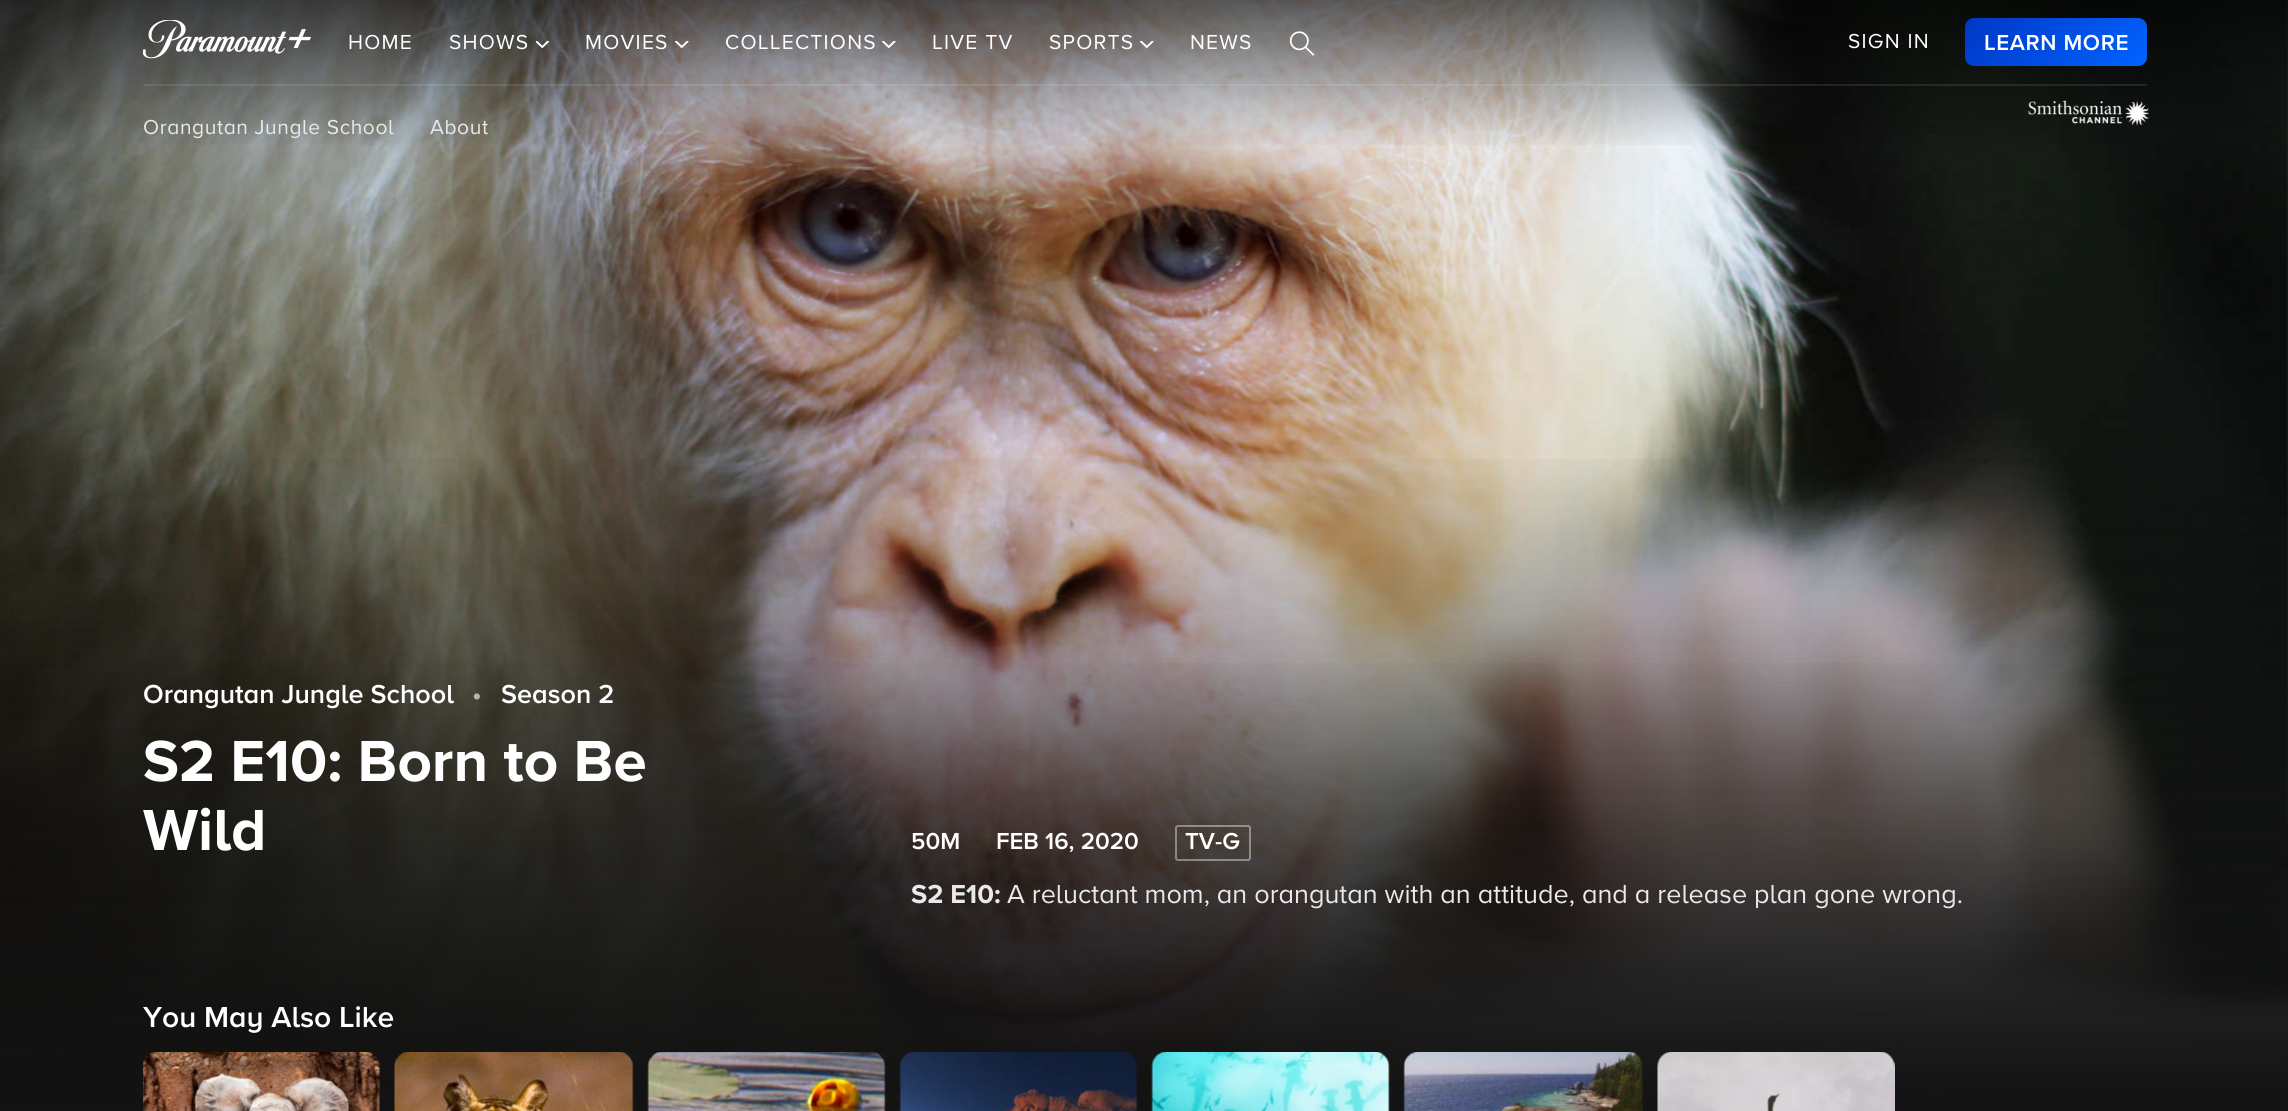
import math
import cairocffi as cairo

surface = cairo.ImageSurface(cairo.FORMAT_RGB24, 2288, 1111)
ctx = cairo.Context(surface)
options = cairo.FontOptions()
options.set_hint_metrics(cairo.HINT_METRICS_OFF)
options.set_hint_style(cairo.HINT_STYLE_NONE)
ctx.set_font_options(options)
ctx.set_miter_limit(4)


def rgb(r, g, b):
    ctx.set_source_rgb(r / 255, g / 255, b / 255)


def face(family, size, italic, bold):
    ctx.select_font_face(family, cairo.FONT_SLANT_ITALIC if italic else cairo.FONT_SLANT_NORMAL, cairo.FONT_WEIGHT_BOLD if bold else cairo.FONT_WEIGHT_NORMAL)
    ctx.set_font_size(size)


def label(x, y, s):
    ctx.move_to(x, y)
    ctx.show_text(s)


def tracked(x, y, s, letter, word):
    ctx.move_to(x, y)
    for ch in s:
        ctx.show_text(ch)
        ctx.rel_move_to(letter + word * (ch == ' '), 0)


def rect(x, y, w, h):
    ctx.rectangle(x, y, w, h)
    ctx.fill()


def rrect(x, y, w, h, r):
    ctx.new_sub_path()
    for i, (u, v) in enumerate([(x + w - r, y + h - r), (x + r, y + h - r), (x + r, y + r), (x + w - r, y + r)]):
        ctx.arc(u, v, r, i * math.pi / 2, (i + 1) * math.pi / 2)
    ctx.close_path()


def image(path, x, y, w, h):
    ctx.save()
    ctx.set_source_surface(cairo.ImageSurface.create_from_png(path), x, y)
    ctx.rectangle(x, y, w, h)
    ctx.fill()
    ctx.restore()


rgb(255, 255, 255)
ctx.paint()
image('image6.png', 0, 0, 2288, 1108)
gradient = cairo.LinearGradient(1145, 0, 1145, 150)
gradient.add_color_stop_rgba(0, 0, 0, 0, 0.6)
gradient.add_color_stop_rgba(1, 0, 0, 0, 0)
ctx.set_source(gradient)
rect(0, 0, 2288, 145)
image('image0.png', 143, 20, 168, 39)
face('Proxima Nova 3', 21, 0, 0)
rgb(255, 255, 255)
tracked(348, 49, 'HOME', 1.25, 0)
tracked(449, 49, 'SHOWS', 1.25, 0)
image('image1.png', 536, 41, 13, 7)
tracked(585, 49, 'MOVIES', 1.25, 0)
image('image2.png', 675, 41, 14, 7)
tracked(725, 49, 'COLLECTIONS', 1.25, 0)
image('image3.png', 882, 41, 14, 7)
tracked(932, 49, 'LIVE TV', 1.25, 0)
tracked(1049, 49, 'SPORTS', 1.25, 0)
image('image4.png', 1140, 41, 14, 7)
tracked(1190, 49, 'NEWS', 1.25, 0)
image('image5.png', 1289, 31, 26, 25)
tracked(1848, 48, 'SIGN IN', 1.25, 0)
gradient = cairo.LinearGradient(1998, -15, 2113, 99)
gradient.add_color_stop_rgba(0, 0, 0.216, 0.773, 1)
gradient.add_color_stop_rgba(1, 0, 0.392, 1, 1)
ctx.set_source(gradient)
rrect(1965, 18, 182, 48, 9)
ctx.fill()
face('Proxima Nova', 22.5, 0, 0)
rgb(255, 255, 255)
tracked(1984, 50, 'LEARN MORE', 0.6, 0)
ctx.set_source_rgba(1, 1, 1, 0.1)
rect(143, 84, 2004, 2)
face('Proxima Nova 3', 21, 0, 0)
rgb(234, 233, 233)
tracked(143, 134, 'Orangutan Jungle School', 0.6, 0)
tracked(430, 134, 'About', 0.6, 0)
gradient = cairo.LinearGradient(1145, 649, 1145, 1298)
gradient.add_color_stop_rgba(0, 0.071, 0.071, 0.071, 0)
gradient.add_color_stop_rgba(1, 0.071, 0.071, 0.071, 1)
ctx.set_source(gradient)
rect(0, 663, 2288, 445)
gradient = cairo.LinearGradient(1145, 0, 1145, 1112)
gradient.add_color_stop_rgba(0.4, 0.071, 0.071, 0.071, 0)
gradient.add_color_stop_rgba(1, 0.071, 0.071, 0.071, 1)
ctx.set_source(gradient)
rect(0, 459, 2288, 652)
image('image7.png', 2028, 100, 122, 26)
face('Proxima Nova', 27, 0, 0)
rgb(255, 255, 255)
label(143, 703, 'Orangutan Jungle School')
rgb(180, 179, 175)
label(472, 703, '•')
rgb(255, 255, 255)
label(501, 703, 'Season 2')
face('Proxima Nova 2', 60, 0, 0)
label(143, 781, 'S2 E10: Born to Be')
label(143, 850, 'Wild')
face('Proxima Nova', 24, 0, 0)
label(911, 849, '50M')
label(996, 849, 'FEB 16, 2020')
rrect(1176, 826, 74, 34, 2)
ctx.set_source_rgba(1, 1, 1, 0.4)
ctx.stroke()
rgb(255, 255, 255)
label(1185, 849, 'TV-G')
face('Proxima Nova 2', 27, 0, 0)
rgb(234, 233, 233)
label(911, 903, 'S2 E10:')
face('Proxima Nova 3', 27, 0, 0)
label(1007, 903, 'A reluctant mom, an orangutan with an attitude, and a release plan gone wrong.')
face('Proxima Nova', 30, 0, 0)
rgb(255, 255, 255)
label(143, 1027, 'You May Also Like')
image('image8.png', 143, 1052, 237, 59)
image('image9.png', 394, 1052, 240, 59)
image('image10.png', 647, 1052, 239, 59)
image('image11.png', 899, 1052, 239, 59)
image('image12.png', 1151, 1052, 239, 59)
image('image13.png', 1403, 1052, 240, 59)
image('image14.png', 1657, 1052, 238, 59)
surface.write_to_png('render.png')
